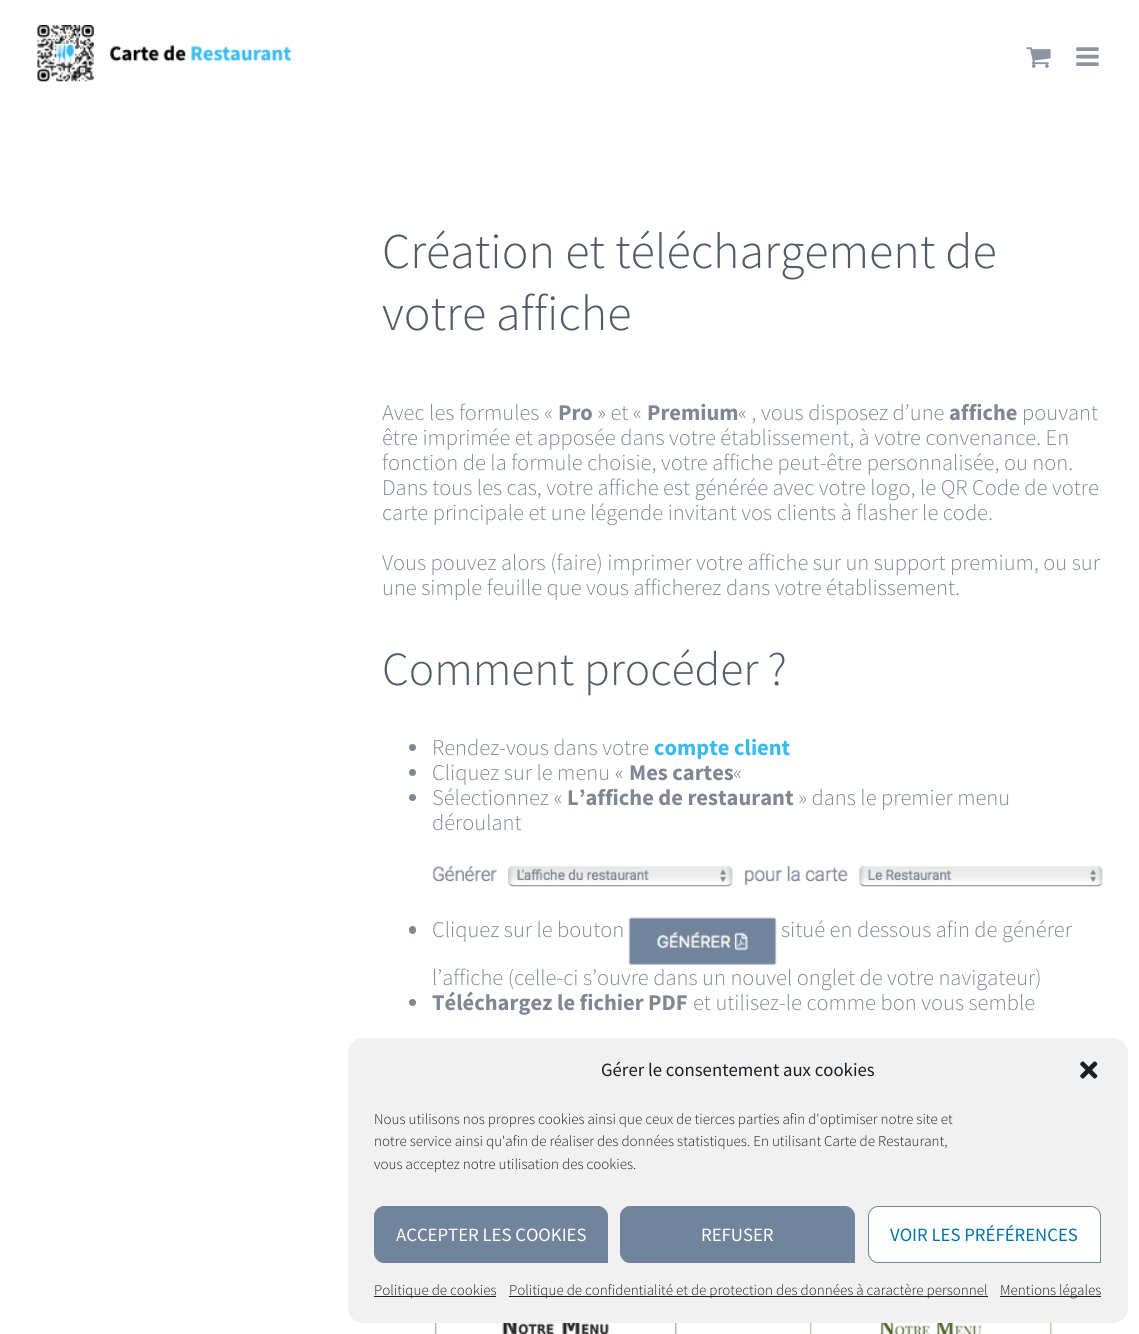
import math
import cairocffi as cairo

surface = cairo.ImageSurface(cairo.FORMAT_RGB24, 1139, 1334)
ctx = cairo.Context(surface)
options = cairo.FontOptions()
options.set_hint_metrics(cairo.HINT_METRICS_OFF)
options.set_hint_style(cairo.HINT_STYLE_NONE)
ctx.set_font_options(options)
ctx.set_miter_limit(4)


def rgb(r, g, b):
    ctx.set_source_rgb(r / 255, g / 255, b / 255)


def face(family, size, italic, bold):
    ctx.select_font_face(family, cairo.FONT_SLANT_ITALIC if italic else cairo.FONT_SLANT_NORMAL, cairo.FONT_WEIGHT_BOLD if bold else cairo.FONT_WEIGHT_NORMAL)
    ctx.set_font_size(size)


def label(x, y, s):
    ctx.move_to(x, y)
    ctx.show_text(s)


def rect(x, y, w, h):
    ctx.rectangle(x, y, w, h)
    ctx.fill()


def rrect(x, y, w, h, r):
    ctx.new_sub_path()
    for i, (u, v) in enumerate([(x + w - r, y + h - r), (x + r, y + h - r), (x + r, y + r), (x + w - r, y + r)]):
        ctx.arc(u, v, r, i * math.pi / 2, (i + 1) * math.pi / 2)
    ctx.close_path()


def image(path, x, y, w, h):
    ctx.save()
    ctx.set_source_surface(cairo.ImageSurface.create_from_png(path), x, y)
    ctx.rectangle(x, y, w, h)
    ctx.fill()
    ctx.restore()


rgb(255, 255, 255)
ctx.paint()
image('image0.png', 37, 25, 255, 57)
image('image1.png', 1026, 47, 25, 21)
image('image2.png', 1076, 47, 23, 19)
face('Source Sans Pro Light', 50, 0, 0)
rgb(81, 91, 105)
label(382, 268, 'Création et téléchargement de')
label(382, 330, 'votre affiche')
face('Source Sans Pro Light', 22.5, 0, 0)
rgb(127, 135, 149)
label(382, 420, 'Avec les formules «')
face('Source Sans Pro', 22.5, 0, 1)
label(558, 420, 'Pro')
face('Source Sans Pro Light', 22.5, 0, 0)
label(597, 420, '» et «')
face('Source Sans Pro', 22.5, 0, 1)
label(647, 420, 'Premium')
face('Source Sans Pro Light', 22.5, 0, 0)
label(738, 420, '« , vous disposez d’une')
face('Source Sans Pro', 22.5, 0, 1)
label(949, 420, 'affiche')
face('Source Sans Pro Light', 22.5, 0, 0)
label(1022, 420, 'pouvant')
label(382, 445, 'être imprimée et apposée dans votre établissement, à votre convenance. En')
label(382, 470, 'fonction de la formule choisie, votre affiche peut-être personnalisée, ou non.')
label(382, 495, 'Dans tous les cas, votre affiche est générée avec votre logo, le QR Code de votre')
label(382, 520, 'carte principale et une légende invitant vos clients à flasher le code.')
label(382, 570, 'Vous pouvez alors (faire) imprimer votre affiche sur un support premium, ou sur')
label(382, 595, 'une simple feuille que vous afficherez dans votre établissement.')
face('Source Sans Pro Light', 47.5, 0, 0)
rgb(81, 91, 105)
label(382, 685, 'Comment procéder ?')
rgb(127, 135, 149)
ctx.new_path()
ctx.arc(412.5, 747.5, 3.5, 0, 2 * math.pi)
ctx.fill()
face('Source Sans Pro Light', 22.5, 0, 0)
label(432, 755, 'Rendez-vous dans votre')
face('Source Sans Pro', 22.5, 0, 1)
rgb(53, 186, 242)
label(654, 755, 'compte client')
rgb(127, 135, 149)
ctx.new_path()
ctx.arc(412.5, 772.5, 3.5, 0, 2 * math.pi)
ctx.fill()
face('Source Sans Pro Light', 22.5, 0, 0)
label(432, 780, 'Cliquez sur le menu «')
face('Source Sans Pro', 22.5, 0, 1)
label(629, 780, 'Mes cartes')
face('Source Sans Pro Light', 22.5, 0, 0)
label(733, 780, '«')
ctx.new_path()
ctx.arc(412.5, 797.5, 3.5, 0, 2 * math.pi)
ctx.fill()
label(432, 805, 'Sélectionnez «')
face('Source Sans Pro', 22.5, 0, 1)
label(567, 805, 'L’affiche de restaurant')
face('Source Sans Pro Light', 22.5, 0, 0)
label(798, 805, '» dans le premier menu')
label(432, 830, 'déroulant')
image('image3.png', 432, 866, 671, 21)
rrect(409, 926, 7, 8, 3.5)
ctx.fill()
label(432, 937, 'Cliquez sur le bouton')
image('image4.png', 628, 917, 149, 48)
label(781, 937, 'situé en dessous afin de générer')
label(432, 985, 'l’affiche (celle-ci s’ouvre dans un nouvel onglet de votre navigateur)')
ctx.new_path()
ctx.arc(412.5, 1002.5, 3.5, 0, 2 * math.pi)
ctx.fill()
face('Source Sans Pro', 22.5, 0, 1)
label(432, 1010, 'Téléchargez le fichier PDF')
face('Source Sans Pro Light', 22.5, 0, 0)
label(693, 1010, 'et utilisez-le comme bon vous semble')
image('image5.png', 434, 1323, 244, 11)
image('image6.png', 809, 1323, 244, 11)
rgb(241, 241, 241)
rrect(348.5, 1038.5, 779, 284, 14.5)
ctx.fill_preserve()
ctx.set_line_width(1)
ctx.stroke()
face('Source Sans Pro', 18.75, 0, 0)
rgb(25, 30, 35)
label(601, 1076, 'Gérer le consentement aux cookies')
image('image7.png', 1080, 1061, 18, 18)
face('Source Sans Pro Light', 15, 0, 0)
label(374, 1124, 'Nous utilisons nos propres cookies ainsi que ceux de tierces parties afin d\'optimiser notre site et')
label(374, 1146, 'notre service ainsi qu\'afin de réaliser des données statistiques. En utilisant Carte de Restaurant,')
label(374, 1169, 'vous acceptez notre utilisation des cookies.')
rgb(114, 132, 156)
ctx.new_path()
ctx.move_to(384, 1206.5)
ctx.line_to(598, 1206.5)
ctx.curve_to(603, 1206.5, 607.5, 1211, 607.5, 1216)
ctx.line_to(607.5, 1262.5)
ctx.line_to(384, 1262.5)
ctx.curve_to(379, 1262.5, 374.5, 1258, 374.5, 1253)
ctx.line_to(374.5, 1216)
ctx.curve_to(374.5, 1211, 379, 1206.5, 384, 1206.5)
ctx.close_path()
ctx.fill_preserve()
ctx.stroke()
face('Source Sans Pro', 18.75, 0, 0)
rgb(255, 255, 255)
label(396, 1241, 'ACCEPTER LES COOKIES')
rgb(114, 132, 156)
ctx.new_path()
ctx.move_to(630, 1206.5)
ctx.line_to(845, 1206.5)
ctx.curve_to(850, 1206.5, 854.5, 1211, 854.5, 1216)
ctx.line_to(854.5, 1262.5)
ctx.line_to(630, 1262.5)
ctx.curve_to(625, 1262.5, 620.5, 1258, 620.5, 1253)
ctx.line_to(620.5, 1216)
ctx.curve_to(620.5, 1211, 625, 1206.5, 630, 1206.5)
ctx.close_path()
ctx.fill_preserve()
ctx.stroke()
rgb(255, 255, 255)
label(701, 1241, 'REFUSER')
ctx.new_path()
ctx.move_to(878, 1206.5)
ctx.line_to(1091, 1206.5)
ctx.curve_to(1096, 1206.5, 1100.5, 1211, 1100.5, 1216)
ctx.line_to(1100.5, 1262.5)
ctx.line_to(878, 1262.5)
ctx.curve_to(873, 1262.5, 868.5, 1258, 868.5, 1253)
ctx.line_to(868.5, 1216)
ctx.curve_to(868.5, 1211, 873, 1206.5, 878, 1206.5)
ctx.close_path()
ctx.fill_preserve()
rgb(114, 132, 156)
ctx.stroke()
rgb(0, 115, 170)
label(890, 1241, 'VOIR LES PRÉFÉRENCES')
rgb(25, 30, 35)
rect(374, 1296, 122, 1)
face('Source Sans Pro Light', 15, 0, 0)
label(374, 1295, 'Politique de cookies')
rect(509, 1296, 479, 1)
label(509, 1295, 'Politique de confidentialité et de protection des données à caractère personnel')
rect(1000, 1296, 101, 1)
label(1000, 1295, 'Mentions légales')
surface.write_to_png('render.png')
